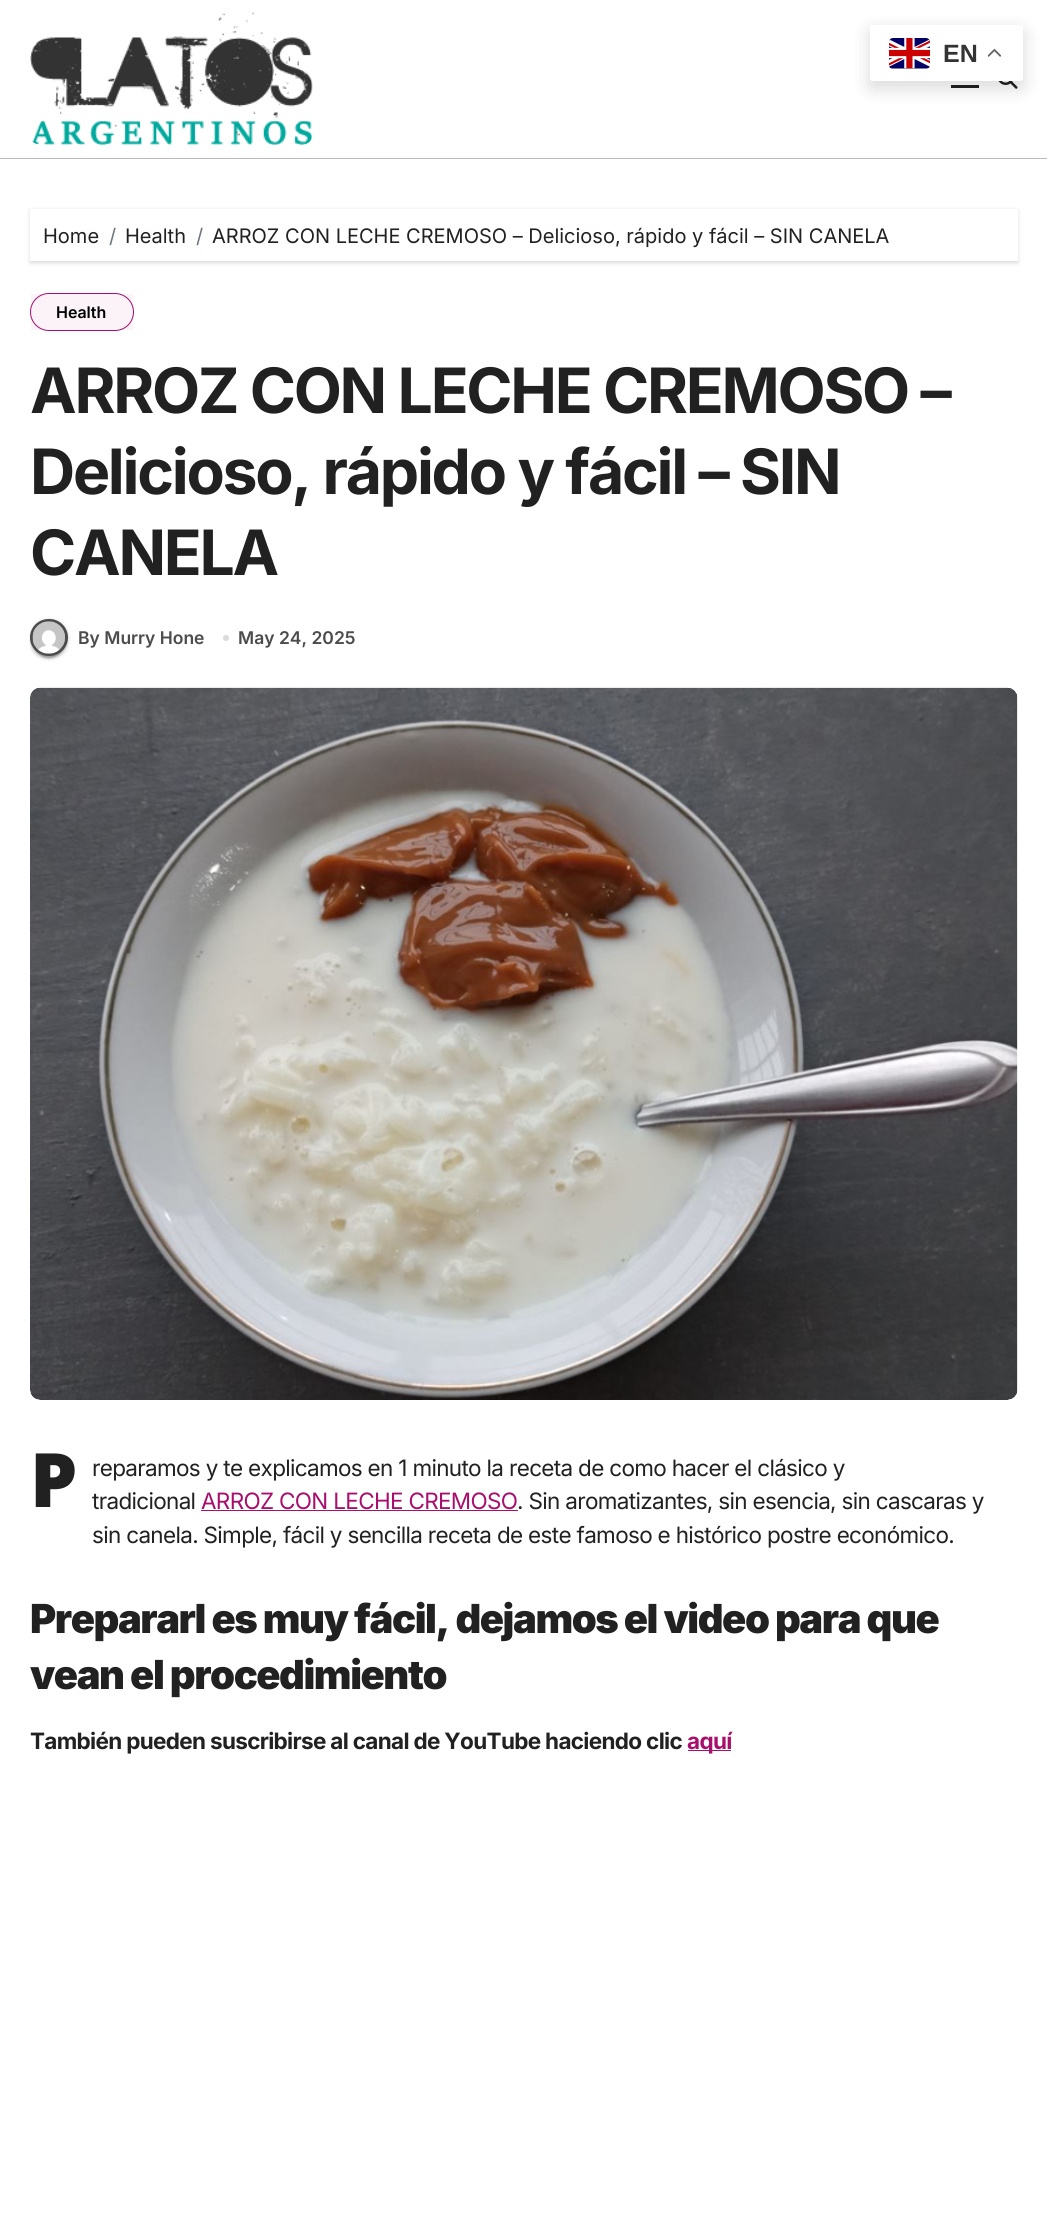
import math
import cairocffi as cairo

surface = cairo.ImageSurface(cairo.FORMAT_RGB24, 1047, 2214)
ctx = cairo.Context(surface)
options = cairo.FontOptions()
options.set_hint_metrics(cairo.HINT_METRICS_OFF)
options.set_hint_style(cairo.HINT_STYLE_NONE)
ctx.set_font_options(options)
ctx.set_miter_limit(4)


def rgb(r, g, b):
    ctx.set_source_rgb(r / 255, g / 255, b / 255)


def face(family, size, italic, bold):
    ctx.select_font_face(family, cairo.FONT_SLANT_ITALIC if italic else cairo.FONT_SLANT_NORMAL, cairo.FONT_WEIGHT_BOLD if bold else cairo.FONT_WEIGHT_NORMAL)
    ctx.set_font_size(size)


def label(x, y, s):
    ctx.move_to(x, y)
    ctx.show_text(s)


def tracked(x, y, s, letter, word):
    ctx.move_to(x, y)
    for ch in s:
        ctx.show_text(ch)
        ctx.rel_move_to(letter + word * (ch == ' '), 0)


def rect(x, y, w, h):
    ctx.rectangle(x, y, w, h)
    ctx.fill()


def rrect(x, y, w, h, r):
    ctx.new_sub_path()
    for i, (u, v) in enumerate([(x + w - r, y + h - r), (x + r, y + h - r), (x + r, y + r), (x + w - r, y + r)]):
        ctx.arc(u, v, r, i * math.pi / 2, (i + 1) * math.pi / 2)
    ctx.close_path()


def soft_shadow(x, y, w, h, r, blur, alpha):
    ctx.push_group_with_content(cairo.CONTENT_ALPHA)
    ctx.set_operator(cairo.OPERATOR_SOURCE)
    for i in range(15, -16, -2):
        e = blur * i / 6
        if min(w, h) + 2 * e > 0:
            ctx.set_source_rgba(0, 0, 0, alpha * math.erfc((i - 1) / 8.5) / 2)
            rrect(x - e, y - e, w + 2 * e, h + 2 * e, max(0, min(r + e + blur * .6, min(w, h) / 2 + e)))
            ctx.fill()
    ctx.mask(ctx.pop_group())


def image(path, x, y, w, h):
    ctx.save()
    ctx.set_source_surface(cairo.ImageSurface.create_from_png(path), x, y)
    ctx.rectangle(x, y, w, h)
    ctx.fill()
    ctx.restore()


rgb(255, 255, 255)
ctx.paint()
rgb(33, 33, 33)
rect(951, 85, 28, 3)
image('image3.png', 998, 81, 20, 8)
rgb(0, 0, 0)
soft_shadow(870, 31, 153, 57, 2.5, 9.5, 0.15)
rgb(255, 255, 255)
rrect(870, 25, 153, 56, 2.5)
ctx.fill()
image('image0.png', 889, 38, 41, 31)
face('Liberation Sans', 25, 0, 1)
rgb(51, 51, 51)
label(943, 62, 'EN')
image('image1.png', 988, 48, 13, 9)
rgb(187, 187, 187)
rect(0, 158, 1047, 1)
image('image2.png', 30, 12, 283, 133)
ctx.save()
ctx.set_fill_rule(cairo.FILL_RULE_EVEN_ODD)
ctx.new_path()
ctx.move_to(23, 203)
ctx.line_to(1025, 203)
ctx.line_to(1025, 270)
ctx.line_to(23, 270)
ctx.close_path()
ctx.move_to(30, 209)
ctx.line_to(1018, 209)
ctx.line_to(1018, 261)
ctx.line_to(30, 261)
ctx.close_path()
ctx.clip()
rgb(0, 0, 0)
soft_shadow(30, 210, 988, 53, 0, 2, 0.15)
ctx.restore()
face('Inter', 20, 0, 0)
rgb(33, 33, 33)
label(43, 243, 'Home')
rgb(108, 117, 125)
label(109, 243, '/')
rgb(33, 33, 33)
label(125, 243, 'Health')
rgb(108, 117, 125)
label(196, 243, '/')
rgb(33, 33, 33)
label(212, 243, 'ARROZ CON LECHE CREMOSO – Delicioso, rápido y fácil – SIN CANELA')
rrect(30.5, 293.5, 103, 37, 18.5)
rgb(169, 14, 109)
ctx.set_line_width(1)
ctx.stroke()
ctx.set_source_rgba(0.663, 0.055, 0.427, 0.05)
rect(31, 294, 102, 36)
face('Inter SemiBold', 16, 0, 0)
rgb(0, 0, 0)
label(56, 318, 'Health')
face('Inter', 62.5, 0, 1)
rgb(33, 33, 33)
tracked(30, 413, 'ARROZ CON LECHE CREMOSO –', -2.25, 0)
tracked(30, 494, 'Delicioso, rápido y fácil – SIN', -2.25, 0)
tracked(30, 575, 'CANELA', -2.25, 0)
ctx.save()
ctx.rectangle(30, 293, 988, 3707)
ctx.clip()
rgb(0, 0, 0)
soft_shadow(30, 620, 38, 38, 19, 3, 0.12)
ctx.restore()
rgb(0, 0, 0)
soft_shadow(33, 625, 32, 33, 16, 0.5, 0.2)
soft_shadow(30, 621, 38, 38, 19, 1, 0.14)
rrect(31.5, 620.5, 35, 34, 17)
rgb(76, 76, 76)
ctx.set_line_width(3)
ctx.stroke()
image('image4.png', 32, 621, 33, 33)
face('Inter SemiBold', 17.5, 0, 0)
label(78, 644, 'By Murry Hone')
rgb(219, 219, 219)
ctx.new_path()
ctx.arc(226, 638, 3, 0, 2 * math.pi)
ctx.fill()
rgb(76, 76, 76)
label(238, 644, 'May 24, 2025')
image('image5.png', 30, 687, 988, 713)
face('Noto Sans Black', 75, 0, 0)
rgb(33, 33, 33)
tracked(30, 1507, 'P', -0.68, 0)
face('Inter', 22.5, 0, 0)
tracked(92, 1476, 'reparamos y te explicamos en 1 minuto la receta de como hacer el clásico y', -0.68, 0)
tracked(92, 1509, 'tradicional', -0.68, 0)
rgb(169, 14, 109)
tracked(201, 1509, 'ARROZ CON LECHE CREMOSO', -0.68, 0)
rect(201, 1510, 317, 1)
rgb(33, 33, 33)
tracked(517, 1509, '. Sin aromatizantes, sin esencia, sin cascaras y', -0.68, 0)
tracked(92, 1543, 'sin canela. Simple, fácil y sencilla receta de este famoso e histórico postre económico.', -0.68, 0)
face('Inter Black', 40, 0, 0)
tracked(30, 1633, 'Prepararl es muy fácil, dejamos el video para que', -1.45, 0)
tracked(30, 1689, 'vean el procedimiento', -1.45, 0)
face('Inter', 22.5, 0, 1)
tracked(30, 1749, 'También pueden suscribirse al canal de YouTube haciendo clic', -0.68, 0)
rgb(169, 14, 109)
rect(688, 1750, 43, 1)
tracked(687, 1749, 'aquí', -0.68, 0)
surface.write_to_png('render.png')
